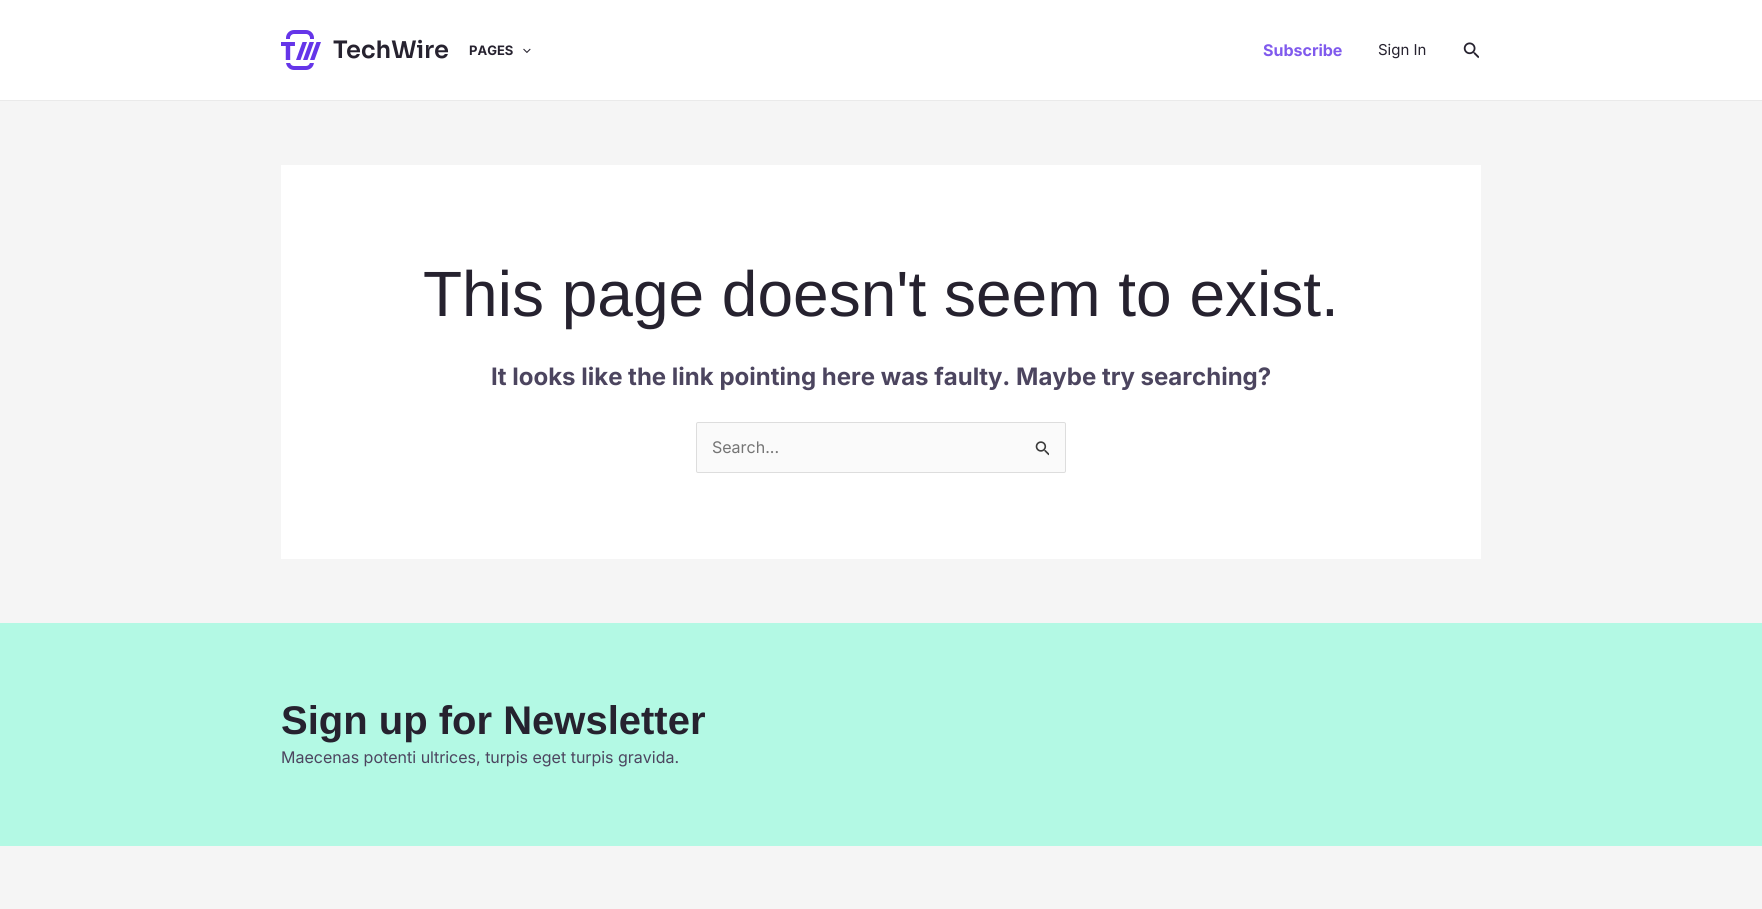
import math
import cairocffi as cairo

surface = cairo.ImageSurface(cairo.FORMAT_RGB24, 1762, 909)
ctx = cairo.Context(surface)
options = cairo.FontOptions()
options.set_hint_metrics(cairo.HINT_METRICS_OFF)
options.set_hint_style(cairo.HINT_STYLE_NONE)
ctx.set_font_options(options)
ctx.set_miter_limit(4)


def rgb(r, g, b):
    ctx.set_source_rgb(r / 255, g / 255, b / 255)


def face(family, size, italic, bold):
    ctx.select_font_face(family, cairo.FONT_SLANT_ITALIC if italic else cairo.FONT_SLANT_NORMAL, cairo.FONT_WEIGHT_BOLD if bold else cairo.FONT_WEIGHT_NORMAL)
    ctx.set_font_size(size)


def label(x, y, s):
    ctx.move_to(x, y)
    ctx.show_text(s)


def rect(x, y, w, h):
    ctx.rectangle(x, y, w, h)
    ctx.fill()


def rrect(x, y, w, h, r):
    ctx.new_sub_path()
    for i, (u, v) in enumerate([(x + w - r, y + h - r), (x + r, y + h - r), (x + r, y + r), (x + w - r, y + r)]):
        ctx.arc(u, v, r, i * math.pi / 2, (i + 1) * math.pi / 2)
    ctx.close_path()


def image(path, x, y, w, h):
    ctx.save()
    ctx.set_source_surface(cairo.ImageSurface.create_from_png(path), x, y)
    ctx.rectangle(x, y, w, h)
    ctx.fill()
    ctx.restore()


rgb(245, 245, 245)
ctx.paint()
rgb(255, 255, 255)
rect(0, 0, 1762, 100)
rgb(234, 234, 234)
rect(0, 100, 1762, 1)
image('image0.png', 281, 30, 168, 40)
face('Inter', 13, 0, 1)
rgb(38, 34, 47)
label(469, 55, 'PAGES')
image('image1.png', 523, 48, 8, 5)
face('Inter', 16, 0, 1)
rgb(128, 90, 237)
label(1263, 56, 'Subscribe')
face('Inter', 15, 0, 0)
rgb(38, 34, 47)
label(1378, 55, 'Sign In')
image('image2.png', 1463, 42, 16, 17)
rgb(255, 255, 255)
rect(281, 165, 1200, 394)
face('Liberation Sans', 64, 0, 0)
rgb(38, 34, 47)
label(423, 316, 'This page doesn\'t seem to exist.')
face('Inter', 24, 0, 1)
rgb(76, 69, 95)
label(491, 385, 'It looks like the link pointing here was faulty. Maybe try searching?')
rgb(250, 250, 250)
rrect(696.5, 422.5, 369, 50, 1.5)
ctx.fill_preserve()
rgb(221, 221, 221)
ctx.set_line_width(1)
ctx.stroke()
face('Inter', 16, 0, 0)
rgb(117, 117, 117)
label(712, 453, 'Search...')
image('image3.png', 1035, 441, 14, 15)
rgb(179, 249, 228)
rect(0, 623, 1762, 223)
face('Liberation Sans', 40, 0, 1)
rgb(38, 34, 47)
label(281, 734, 'Sign up for Newsletter')
face('Inter', 16, 0, 0)
rgb(76, 69, 95)
label(281, 763, 'Maecenas potenti ultrices, turpis eget turpis gravida.')
surface.write_to_png('render.png')
